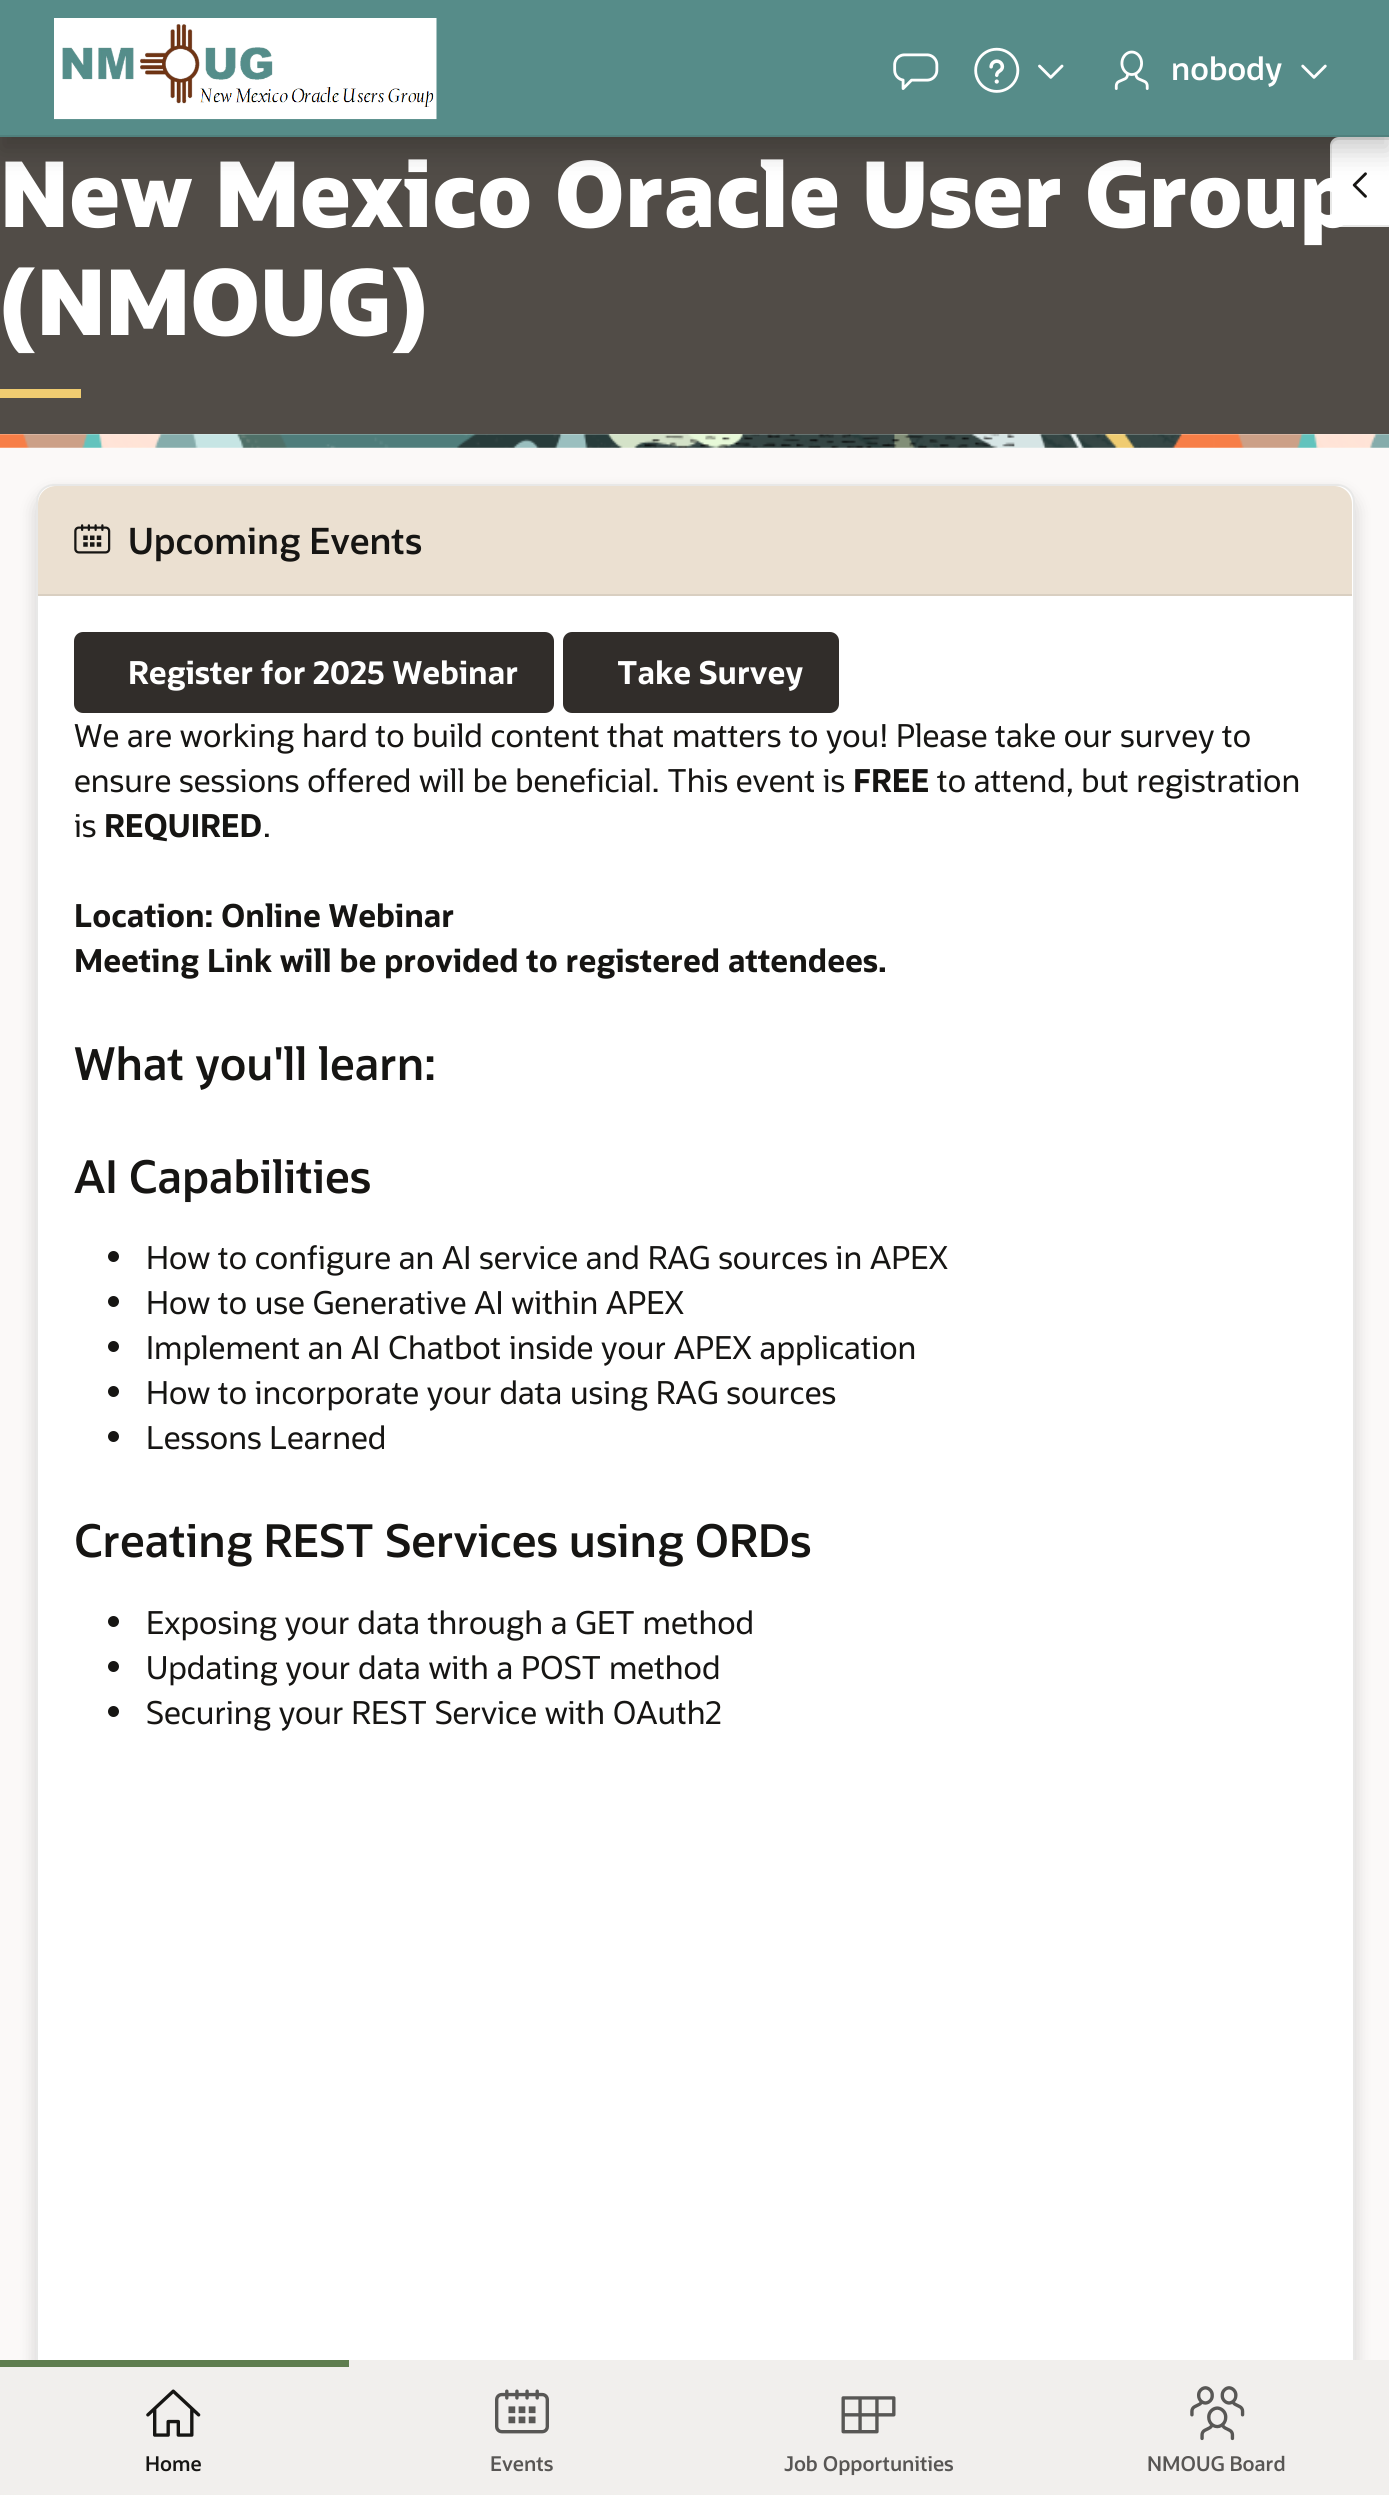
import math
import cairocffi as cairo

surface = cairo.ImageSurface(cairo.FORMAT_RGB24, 1389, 2495)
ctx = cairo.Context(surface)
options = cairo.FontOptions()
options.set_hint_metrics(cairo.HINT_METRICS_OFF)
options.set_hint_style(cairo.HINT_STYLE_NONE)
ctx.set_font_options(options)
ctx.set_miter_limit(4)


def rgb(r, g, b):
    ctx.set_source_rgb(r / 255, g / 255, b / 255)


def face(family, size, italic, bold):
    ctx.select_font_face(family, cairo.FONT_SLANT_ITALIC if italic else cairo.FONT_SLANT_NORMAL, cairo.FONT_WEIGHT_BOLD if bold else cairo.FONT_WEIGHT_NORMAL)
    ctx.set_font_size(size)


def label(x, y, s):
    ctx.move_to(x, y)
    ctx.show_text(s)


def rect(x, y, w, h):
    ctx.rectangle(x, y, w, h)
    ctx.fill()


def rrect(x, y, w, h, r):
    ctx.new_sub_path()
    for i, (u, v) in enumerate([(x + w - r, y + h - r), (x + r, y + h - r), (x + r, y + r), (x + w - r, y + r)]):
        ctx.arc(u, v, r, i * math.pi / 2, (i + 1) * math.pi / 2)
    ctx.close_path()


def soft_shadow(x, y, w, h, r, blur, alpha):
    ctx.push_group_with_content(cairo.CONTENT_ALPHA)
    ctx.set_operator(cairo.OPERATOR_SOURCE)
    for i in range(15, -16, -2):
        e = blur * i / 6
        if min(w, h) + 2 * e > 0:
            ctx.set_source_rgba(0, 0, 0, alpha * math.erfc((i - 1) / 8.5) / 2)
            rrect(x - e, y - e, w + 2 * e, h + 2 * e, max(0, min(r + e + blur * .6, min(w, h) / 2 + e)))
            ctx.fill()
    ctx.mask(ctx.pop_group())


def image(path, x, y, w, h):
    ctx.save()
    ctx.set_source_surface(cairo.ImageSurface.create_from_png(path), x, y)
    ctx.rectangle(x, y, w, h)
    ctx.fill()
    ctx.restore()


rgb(251, 249, 248)
ctx.paint()
rgb(81, 76, 71)
rect(0, 137, 1389, 297)
rgb(255, 255, 255)
ctx.new_path()
ctx.move_to(1339, 137)
ctx.line_to(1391, 137)
ctx.line_to(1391, 227)
ctx.line_to(1339, 227)
ctx.curve_to(1334, 227, 1330, 223, 1330, 218)
ctx.line_to(1330, 146)
ctx.curve_to(1330, 141, 1334, 137, 1339, 137)
ctx.close_path()
ctx.fill()
ctx.set_source_rgba(0.086, 0.082, 0.075, 0.1)
ctx.set_fill_rule(cairo.FILL_RULE_EVEN_ODD)
ctx.new_path()
ctx.move_to(1339, 137)
ctx.line_to(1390, 137)
ctx.line_to(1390, 227)
ctx.line_to(1339, 227)
ctx.curve_to(1334, 227, 1330, 223, 1330, 218)
ctx.line_to(1330, 146)
ctx.curve_to(1330, 141, 1334, 137, 1339, 137)
ctx.close_path()
ctx.move_to(1339, 140)
ctx.line_to(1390, 140)
ctx.line_to(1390, 225)
ctx.line_to(1339, 225)
ctx.curve_to(1335, 225, 1332, 222, 1332, 218)
ctx.line_to(1332, 146)
ctx.curve_to(1332, 143, 1335, 140, 1339, 140)
ctx.close_path()
ctx.fill()
face('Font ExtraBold', 90, 0, 0)
rgb(255, 255, 255)
label(0, 227, 'New Mexico Oracle User Group')
image('image12.png', 1352, 172, 15, 26)
rgb(0, 0, 0)
soft_shadow(0, 14, 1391, 137, 0, 13.5, 0.2)
rgb(86, 140, 137)
rect(0, 0, 1389, 135)
rgb(80, 128, 125)
rect(0, 135, 1389, 2)
image('image0.png', 54, 18, 383, 102)
image('image1.png', 893, 53, 46, 37)
image('image2.png', 974, 47, 46, 46)
image('image3.png', 1038, 64, 26, 15)
image('image4.png', 1114, 50, 35, 40)
face('Font SemiBold', 31.5, 0, 0)
rgb(255, 255, 255)
label(1171, 80, 'nobody')
image('image5.png', 1301, 64, 26, 15)
rgb(0, 0, 0)
soft_shadow(36, 493, 1319, 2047, 18, 9, 0.16)
rgb(255, 255, 255)
rrect(36, 484, 1319, 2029, 18)
ctx.fill()
rrect(37, 485, 1317, 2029, 17)
ctx.set_source_rgba(0.086, 0.082, 0.075, 0.1)
ctx.stroke()
rgb(241, 239, 237)
rect(0, 2360, 1389, 135)
rgb(95, 125, 79)
rect(0, 2360, 349, 7)
image('image6.png', 146, 2389, 55, 48)
face('Font SemiBold', 20.25, 0, 0)
rgb(22, 21, 19)
label(145, 2471, 'Home')
image('image7.png', 495, 2389, 54, 45)
rgb(88, 86, 84)
label(490, 2471, 'Events')
image('image8.png', 841, 2396, 55, 38)
label(784, 2471, 'Job Opportunities')
image('image9.png', 1190, 2386, 55, 55)
label(1147, 2471, 'NMOUG Board')
face('Font ExtraBold', 90, 0, 0)
rgb(255, 255, 255)
label(0, 335, '(NMOUG)')
rgb(240, 204, 113)
rect(0, 389, 81, 9)
image('image10.png', 0, 434, 1389, 14)
rgb(235, 224, 209)
ctx.new_path()
ctx.move_to(56, 486)
ctx.line_to(1334, 486)
ctx.curve_to(1344, 486, 1352, 494, 1352, 504)
ctx.line_to(1352, 596)
ctx.line_to(38, 596)
ctx.line_to(38, 504)
ctx.curve_to(38, 494, 46, 486, 56, 486)
ctx.close_path()
ctx.fill()
rgb(217, 207, 193)
rect(38, 594, 1314, 2)
image('image11.png', 74, 524, 37, 30)
face('Font SemiBold', 36, 0, 0)
rgb(22, 21, 19)
label(128, 554, 'Upcoming Events')
rgb(49, 45, 42)
rrect(74, 632, 480, 81, 9)
ctx.fill()
face('Font', 31.5, 0, 1)
rgb(255, 255, 255)
label(128, 684, 'Register for 2025 Webinar')
rgb(49, 45, 42)
rrect(563, 632, 276, 81, 9)
ctx.fill()
rgb(255, 255, 255)
label(617, 684, 'Take Survey')
face('Font', 31.5, 0, 0)
rgb(22, 21, 19)
label(74, 747, 'We are working hard to build content that matters to you! Please take our survey to')
label(74, 792, 'ensure sessions offered will be beneficial. This event is')
face('Font', 31.5, 0, 1)
label(853, 792, 'FREE')
face('Font', 31.5, 0, 0)
label(937, 792, 'to attend, but registration')
label(74, 837, 'is')
face('Font', 31.5, 0, 1)
label(104, 837, 'REQUIRED')
face('Font', 31.5, 0, 0)
label(263, 837, '.')
face('Font', 31.5, 0, 1)
label(74, 927, 'Location: Online Webinar')
label(74, 972, 'Meeting Link will be provided to registered attendees.')
face('Font SemiBold', 45, 0, 0)
label(74, 1080, 'What you\'ll learn:')
label(74, 1193, 'AI Capabilities')
ctx.new_path()
ctx.arc(113.5, 1256.5, 5.5, 0, 2 * math.pi)
ctx.fill()
face('Font', 31.5, 0, 0)
label(146, 1269, 'How to configure an AI service and RAG sources in APEX')
ctx.new_path()
ctx.arc(113.5, 1301.5, 5.5, 0, 2 * math.pi)
ctx.fill()
label(146, 1314, 'How to use Generative AI within APEX')
ctx.new_path()
ctx.arc(113.5, 1346.5, 5.5, 0, 2 * math.pi)
ctx.fill()
label(146, 1359, 'Implement an AI Chatbot inside your APEX application')
ctx.new_path()
ctx.arc(113.5, 1391.5, 5.5, 0, 2 * math.pi)
ctx.fill()
label(146, 1404, 'How to incorporate your data using RAG sources')
ctx.new_path()
ctx.arc(113.5, 1436.5, 5.5, 0, 2 * math.pi)
ctx.fill()
label(146, 1449, 'Lessons Learned')
face('Font SemiBold', 45, 0, 0)
label(74, 1557, 'Creating REST Services using ORDs')
ctx.new_path()
ctx.arc(113.5, 1621.5, 5.5, 0, 2 * math.pi)
ctx.fill()
face('Font', 31.5, 0, 0)
label(146, 1634, 'Exposing your data through a GET method')
ctx.new_path()
ctx.arc(113.5, 1666.5, 5.5, 0, 2 * math.pi)
ctx.fill()
label(146, 1679, 'Updating your data with a POST method')
ctx.new_path()
ctx.arc(113.5, 1711.5, 5.5, 0, 2 * math.pi)
ctx.fill()
label(146, 1724, 'Securing your REST Service with OAuth2')
surface.write_to_png('render.png')
